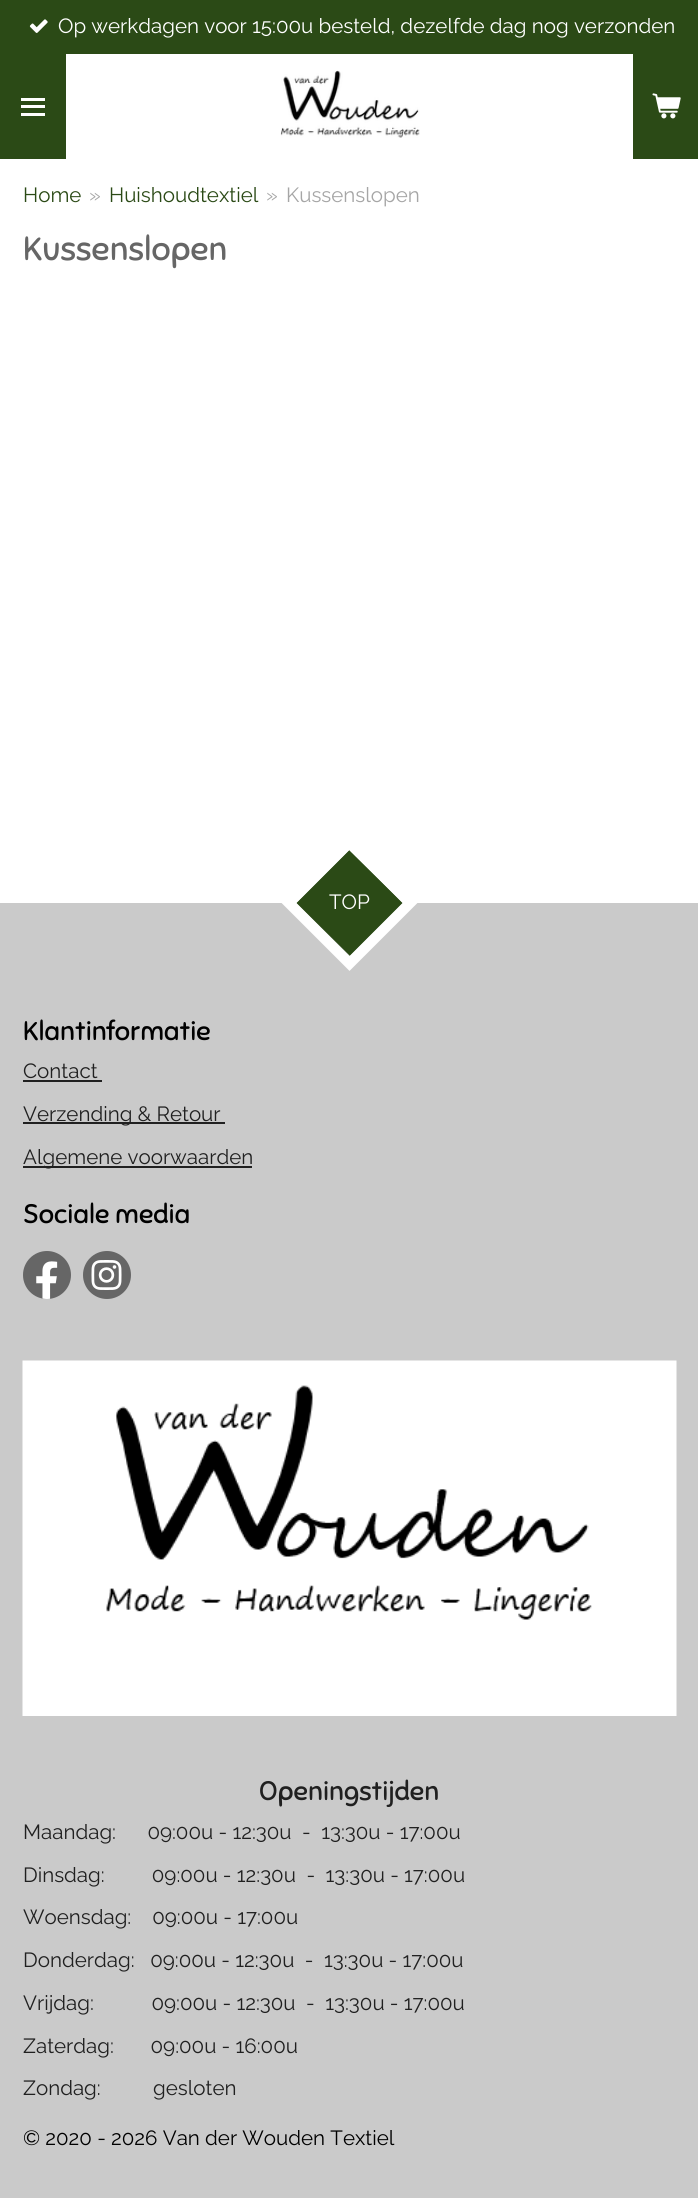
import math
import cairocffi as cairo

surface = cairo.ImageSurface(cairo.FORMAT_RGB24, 698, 2198)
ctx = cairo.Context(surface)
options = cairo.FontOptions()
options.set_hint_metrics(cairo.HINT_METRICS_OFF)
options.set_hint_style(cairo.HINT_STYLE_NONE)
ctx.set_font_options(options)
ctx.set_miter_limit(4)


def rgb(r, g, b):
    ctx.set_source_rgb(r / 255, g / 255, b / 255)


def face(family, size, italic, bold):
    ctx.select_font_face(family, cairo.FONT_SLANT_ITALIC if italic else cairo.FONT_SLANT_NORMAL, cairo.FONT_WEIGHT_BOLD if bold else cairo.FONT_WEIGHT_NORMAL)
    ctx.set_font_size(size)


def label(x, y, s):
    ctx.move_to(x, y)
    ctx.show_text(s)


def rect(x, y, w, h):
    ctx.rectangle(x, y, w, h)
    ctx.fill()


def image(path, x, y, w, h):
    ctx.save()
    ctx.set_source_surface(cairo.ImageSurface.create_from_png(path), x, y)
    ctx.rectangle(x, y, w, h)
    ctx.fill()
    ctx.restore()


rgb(255, 255, 255)
ctx.paint()
rgb(43, 74, 22)
rect(0, 0, 698, 54)
image('image0.png', 29, 19, 19, 14)
face('Raleway', 20.55, 0, 0)
rgb(255, 255, 255)
label(58, 33, 'Op werkdagen voor 15:00u besteld, dezelfde dag nog verzonden')
rgb(43, 74, 22)
rect(0, 54, 66, 105)
rgb(255, 255, 255)
rect(21, 105, 24, 3)
rect(21, 98, 24, 3)
rect(21, 113, 24, 3)
image('image1.png', 280, 70, 140, 68)
rgb(43, 74, 22)
rect(633, 54, 65, 105)
image('image2.png', 652, 93, 29, 26)
label(23, 202, 'Home')
rgb(166, 166, 166)
label(89, 202, '»')
rgb(43, 74, 22)
label(109, 202, 'Huishoudtextiel')
rgb(166, 166, 166)
label(266, 202, '»')
label(286, 202, 'Kussenslopen')
face('Sniglet', 33.75, 0, 0)
rgb(102, 102, 102)
label(23, 260, 'Kussenslopen')
rgb(202, 202, 202)
rect(0, 903, 698, 1295)
rgb(43, 74, 22)
ctx.new_path()
ctx.move_to(349, 850)
ctx.line_to(403, 903)
ctx.line_to(350, 956)
ctx.line_to(296, 903)
ctx.close_path()
ctx.fill()
ctx.new_path()
ctx.move_to(349.5, 842.5)
ctx.line_to(410, 903)
ctx.line_to(349.5, 963.5)
ctx.line_to(289, 903)
ctx.close_path()
rgb(255, 255, 255)
ctx.set_line_width(10.5)
ctx.stroke()
face('Raleway', 20.55, 0, 0)
label(329, 909, 'TOP')
face('Sniglet', 27, 0, 0)
rgb(0, 0, 0)
label(23, 1040, 'Klantinformatie')
face('Raleway', 20.55, 0, 0)
rgb(32, 32, 32)
label(23, 1078, 'Contact')
rect(23, 1080, 79, 2)
rect(23, 1122, 202, 2)
label(23, 1121, 'Verzending & Retour')
rect(23, 1166, 229, 2)
label(23, 1164, 'Algemene voorwaarden')
face('Sniglet', 27, 0, 0)
rgb(0, 0, 0)
label(23, 1223, 'Sociale media')
rgb(102, 102, 102)
ctx.new_path()
ctx.arc(47, 1275, 24, 0, 2 * math.pi)
ctx.fill()
image('image3.png', 36, 1261, 22, 38)
ctx.arc(107, 1275, 24, 0, 2 * math.pi)
ctx.fill()
image('image4.png', 91, 1260, 31, 30)
image('image5.png', 22, 1360, 655, 356)
rgb(32, 32, 32)
label(259, 1800, 'Openingstijden')
face('Raleway', 20.55, 0, 0)
label(23, 1839, 'Maandag:      09:00u - 12:30u  -  13:30u - 17:00u')
label(23, 1882, 'Dinsdag:         09:00u - 12:30u  -  13:30u - 17:00u')
label(23, 1924, 'Woensdag:    09:00u - 17:00u')
label(23, 1967, 'Donderdag:   09:00u - 12:30u  -  13:30u - 17:00u')
label(23, 2010, 'Vrijdag:           09:00u - 12:30u  -  13:30u - 17:00u')
label(23, 2053, 'Zaterdag:       09:00u - 16:00u')
label(23, 2095, 'Zondag:          gesloten')
rgb(0, 0, 0)
label(23, 2145, '© 2020 - 2026 Van der Wouden Textiel')
surface.write_to_png('render.png')
